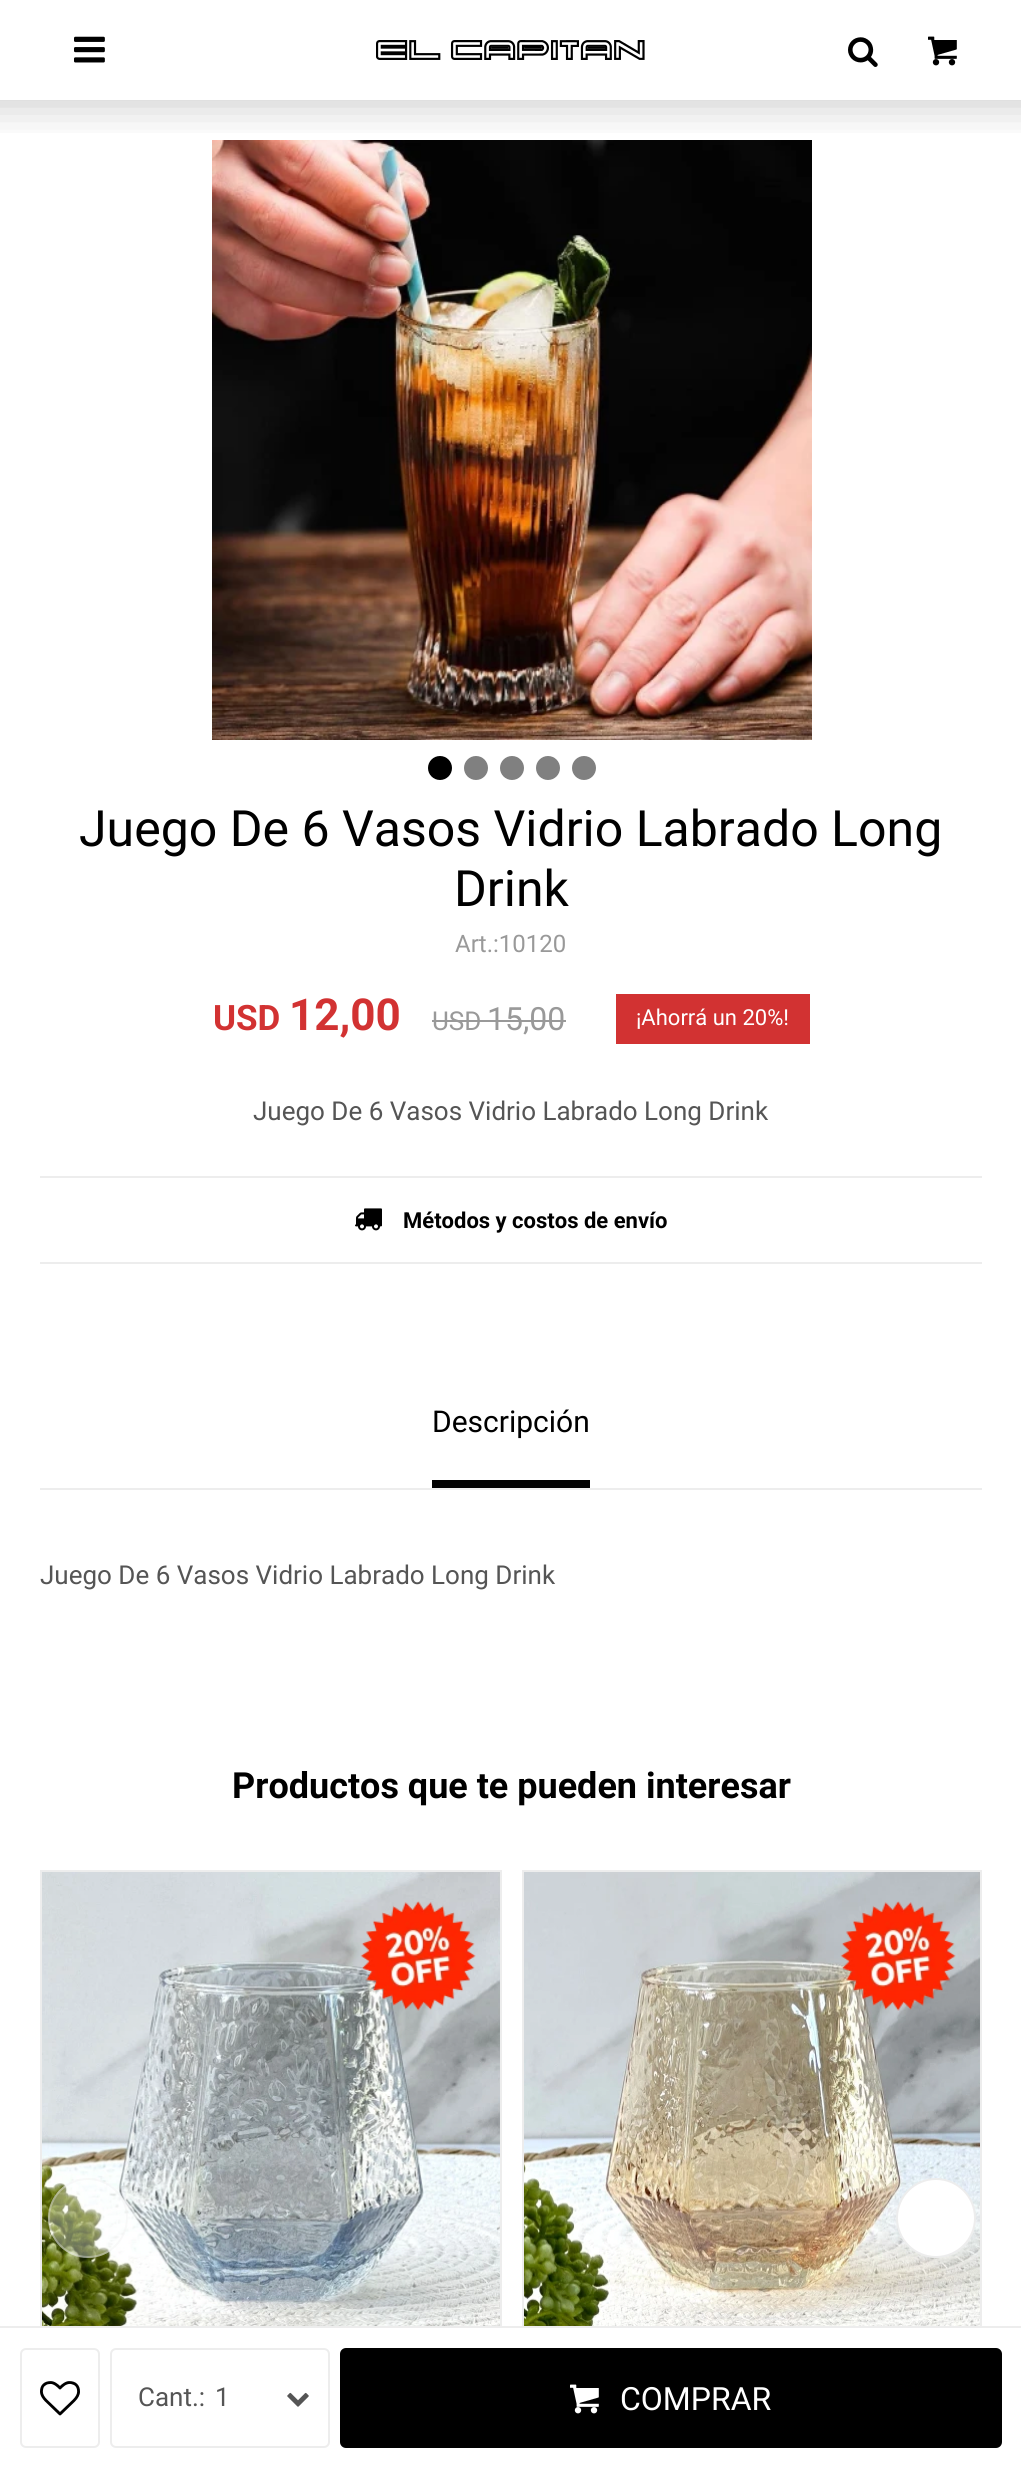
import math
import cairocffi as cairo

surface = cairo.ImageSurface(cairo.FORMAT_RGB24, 1021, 2468)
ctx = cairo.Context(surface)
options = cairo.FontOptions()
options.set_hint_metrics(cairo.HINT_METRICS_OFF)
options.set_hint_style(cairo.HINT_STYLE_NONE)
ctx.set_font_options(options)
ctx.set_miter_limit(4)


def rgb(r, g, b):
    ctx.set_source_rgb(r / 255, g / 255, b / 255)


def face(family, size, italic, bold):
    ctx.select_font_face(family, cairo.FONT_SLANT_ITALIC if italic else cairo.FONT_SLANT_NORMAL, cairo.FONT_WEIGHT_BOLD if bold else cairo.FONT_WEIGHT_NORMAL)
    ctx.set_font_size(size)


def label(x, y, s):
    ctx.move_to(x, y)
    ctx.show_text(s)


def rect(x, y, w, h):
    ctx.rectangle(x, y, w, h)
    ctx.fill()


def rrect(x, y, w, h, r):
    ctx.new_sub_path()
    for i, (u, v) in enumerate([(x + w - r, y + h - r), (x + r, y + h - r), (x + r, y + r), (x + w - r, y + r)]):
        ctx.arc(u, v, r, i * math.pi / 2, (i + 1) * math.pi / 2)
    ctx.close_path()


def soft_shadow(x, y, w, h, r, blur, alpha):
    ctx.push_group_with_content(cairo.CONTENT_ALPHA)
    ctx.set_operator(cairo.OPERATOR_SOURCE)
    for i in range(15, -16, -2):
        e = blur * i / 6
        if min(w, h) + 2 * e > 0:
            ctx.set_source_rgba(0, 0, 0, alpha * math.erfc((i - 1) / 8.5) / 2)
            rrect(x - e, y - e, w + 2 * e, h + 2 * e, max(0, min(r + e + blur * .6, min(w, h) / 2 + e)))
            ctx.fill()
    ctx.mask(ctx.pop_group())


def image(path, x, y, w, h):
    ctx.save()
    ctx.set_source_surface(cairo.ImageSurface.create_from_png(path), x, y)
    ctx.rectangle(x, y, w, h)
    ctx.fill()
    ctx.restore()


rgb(255, 255, 255)
ctx.paint()
image('image4.png', 212, 140, 600, 600)
ctx.save()
ctx.rectangle(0, 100, 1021, 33)
ctx.clip()
rgb(0, 0, 0)
soft_shadow(-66, 4, 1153, 100, 0, 22, 0.22)
ctx.restore()
image('image0.png', 74, 36, 31, 27)
image('image1.png', 376, 40, 269, 20)
image('image2.png', 848, 37, 30, 30)
image('image3.png', 928, 36, 29, 30)
rgb(0, 0, 0)
ctx.arc(440, 768, 12, 0, 2 * math.pi)
ctx.fill()
rgb(128, 128, 128)
ctx.arc(476, 768, 12, 0, 2 * math.pi)
ctx.fill()
ctx.arc(512, 768, 12, 0, 2 * math.pi)
ctx.fill()
ctx.arc(548, 768, 12, 0, 2 * math.pi)
ctx.fill()
ctx.arc(584, 768, 12, 0, 2 * math.pi)
ctx.fill()
face('Roboto', 50, 0, 0)
rgb(0, 0, 0)
label(79, 846, 'Juego De 6 Vasos Vidrio Labrado Long')
label(454, 906, 'Drink')
face('Roboto', 24, 0, 0)
rgb(153, 153, 153)
label(455, 952, 'Art.:10120')
face('Roboto', 35, 0, 1)
rgb(210, 50, 50)
label(213, 1030, 'USD')
face('Roboto', 44, 0, 1)
label(289, 1030, '12,00')
face('Roboto', 26, 0, 0)
rgb(153, 153, 153)
label(432, 1030, 'USD')
face('Roboto', 32, 0, 0)
label(487, 1030, '15,00')
rect(432, 1020, 134, 2)
rgb(210, 50, 50)
rect(616, 994, 194, 50)
face('Roboto', 22, 0, 0)
rgb(255, 255, 255)
label(636, 1025, '¡Ahorrá un 20%!')
face('Roboto', 26, 0, 0)
rgb(85, 85, 85)
label(253, 1120, 'Juego De 6 Vasos Vidrio Labrado Long Drink')
rgb(237, 237, 237)
rect(40, 1176, 942, 2)
rect(40, 1262, 942, 2)
image('image5.png', 355, 1208, 27, 23)
face('Roboto', 22, 0, 1)
rgb(0, 0, 0)
label(403, 1228, 'Métodos y costos de envío')
image('image9.png', 42, 1872, 458, 454)
image('image10.png', 360, 1901, 116, 110)
ctx.rectangle(41, 1871, 460, 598)
rgb(237, 237, 237)
ctx.stroke()
image('image11.png', 524, 1872, 456, 454)
image('image12.png', 840, 1901, 116, 110)
ctx.rectangle(523, 1871, 458, 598)
ctx.stroke()
rgb(255, 255, 255)
rect(40, 2328, 942, 140)
rgb(237, 237, 237)
rect(0, 2326, 1021, 2)
rrect(21, 2349, 78, 98, 5)
ctx.stroke()
image('image6.png', 40, 2381, 40, 35)
image('image7.png', 287, 2392, 22, 15)
rrect(111, 2349, 218, 98, 5)
ctx.stroke()
face('Roboto', 26, 0, 0)
rgb(85, 85, 85)
label(138, 2406, 'Cant.:')
label(215, 2406, '1')
rgb(0, 0, 0)
rrect(340, 2348, 662, 100, 6)
ctx.fill()
image('image8.png', 570, 2384, 29, 30)
face('Roboto', 32, 0, 0)
rgb(255, 255, 255)
label(620, 2410, 'COMPRAR')
rgb(237, 237, 237)
rect(40, 1488, 942, 2)
rgb(0, 0, 0)
rect(432, 1480, 158, 8)
face('Roboto', 30, 0, 0)
label(432, 1432, 'Descripción')
face('Roboto', 26, 0, 0)
rgb(85, 85, 85)
label(40, 1584, 'Juego De 6 Vasos Vidrio Labrado Long Drink')
face('Roboto', 36, 0, 1)
rgb(0, 0, 0)
label(232, 1798, 'Productos que te pueden interesar')
ctx.set_source_rgba(1, 1, 1, 0.35)
ctx.new_path()
ctx.arc(88, 2218, 40, 0, 2 * math.pi)
ctx.fill()
ctx.arc(88, 2218, 39, 0, 2 * math.pi)
ctx.set_source_rgba(0.929, 0.929, 0.929, 0.35)
ctx.stroke()
rgb(255, 255, 255)
ctx.arc(936, 2218, 39, 0, 2 * math.pi)
ctx.fill_preserve()
rgb(237, 237, 237)
ctx.stroke()
surface.write_to_png('render.png')
